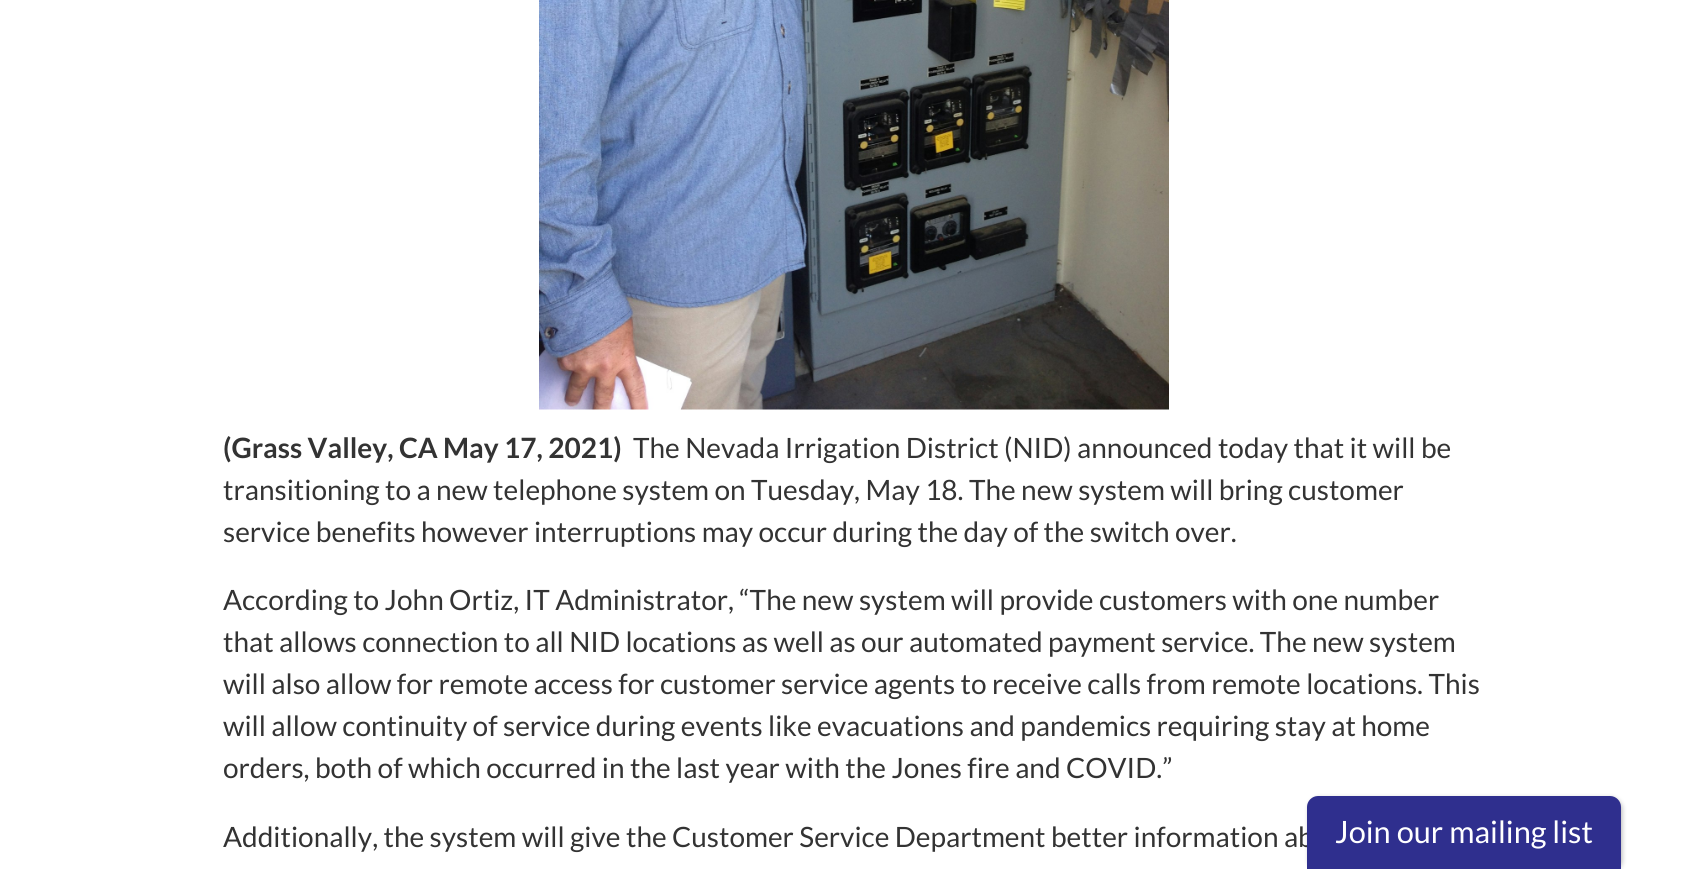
import math
import cairocffi as cairo

surface = cairo.ImageSurface(cairo.FORMAT_RGB24, 1705, 869)
ctx = cairo.Context(surface)
options = cairo.FontOptions()
options.set_hint_metrics(cairo.HINT_METRICS_OFF)
options.set_hint_style(cairo.HINT_STYLE_NONE)
ctx.set_font_options(options)
ctx.set_miter_limit(4)


def rgb(r, g, b):
    ctx.set_source_rgb(r / 255, g / 255, b / 255)


def face(family, size, italic, bold):
    ctx.select_font_face(family, cairo.FONT_SLANT_ITALIC if italic else cairo.FONT_SLANT_NORMAL, cairo.FONT_WEIGHT_BOLD if bold else cairo.FONT_WEIGHT_NORMAL)
    ctx.set_font_size(size)


def label(x, y, s):
    ctx.move_to(x, y)
    ctx.show_text(s)


def rrect(x, y, w, h, r):
    ctx.new_sub_path()
    for i, (u, v) in enumerate([(x + w - r, y + h - r), (x + r, y + h - r), (x + r, y + r), (x + w - r, y + r)]):
        ctx.arc(u, v, r, i * math.pi / 2, (i + 1) * math.pi / 2)
    ctx.close_path()


def soft_shadow(x, y, w, h, r, blur, alpha):
    ctx.push_group_with_content(cairo.CONTENT_ALPHA)
    ctx.set_operator(cairo.OPERATOR_SOURCE)
    for i in range(15, -16, -2):
        e = blur * i / 6
        if min(w, h) + 2 * e > 0:
            ctx.set_source_rgba(0, 0, 0, alpha * math.erfc((i - 1) / 8.5) / 2)
            rrect(x - e, y - e, w + 2 * e, h + 2 * e, max(0, min(r + e + blur * .6, min(w, h) / 2 + e)))
            ctx.fill()
    ctx.mask(ctx.pop_group())


def image(path, x, y, w, h):
    ctx.save()
    ctx.set_source_surface(cairo.ImageSurface.create_from_png(path), x, y)
    ctx.rectangle(x, y, w, h)
    ctx.fill()
    ctx.restore()


rgb(255, 255, 255)
ctx.paint()
image('image0.png', 539, 0, 630, 410)
face('Lato', 28, 0, 1)
rgb(51, 51, 51)
label(223, 458, '(Grass Valley, CA May 17, 2021)')
face('Lato', 28, 0, 0)
label(633, 458, 'The Nevada Irrigation District (NID) announced today that it will be')
label(223, 500, 'transitioning to a new telephone system on Tuesday, May 18. The new system will bring customer')
label(223, 542, 'service benefits however interruptions may occur during the day of the switch over.')
label(223, 610, 'According to John Ortiz, IT Administrator, “The new system will provide customers with one number')
label(223, 652, 'that allows connection to all NID locations as well as our automated payment service. The new system')
label(223, 694, 'will also allow for remote access for customer service agents to receive calls from remote locations. This')
label(223, 736, 'will allow continuity of service during events like evacuations and pandemics requiring stay at home')
label(223, 778, 'orders, both of which occurred in the last year with the Jones fire and COVID.”')
label(223, 847, 'Additionally, the system will give the Customer Service Department better information ab')
rgb(0, 0, 0)
soft_shadow(1309, 798, 313, 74, 11, 2.5, 0.3)
rgb(47, 47, 142)
ctx.new_path()
ctx.move_to(1318, 796)
ctx.line_to(1610, 796)
ctx.curve_to(1616, 796, 1621, 801, 1621, 807)
ctx.line_to(1621, 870)
ctx.line_to(1307, 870)
ctx.line_to(1307, 807)
ctx.curve_to(1307, 801, 1312, 796, 1318, 796)
ctx.close_path()
ctx.fill()
face('Lato', 30.75, 0, 0)
rgb(255, 255, 255)
label(1335, 843, 'Join our mailing list')
surface.write_to_png('render.png')
